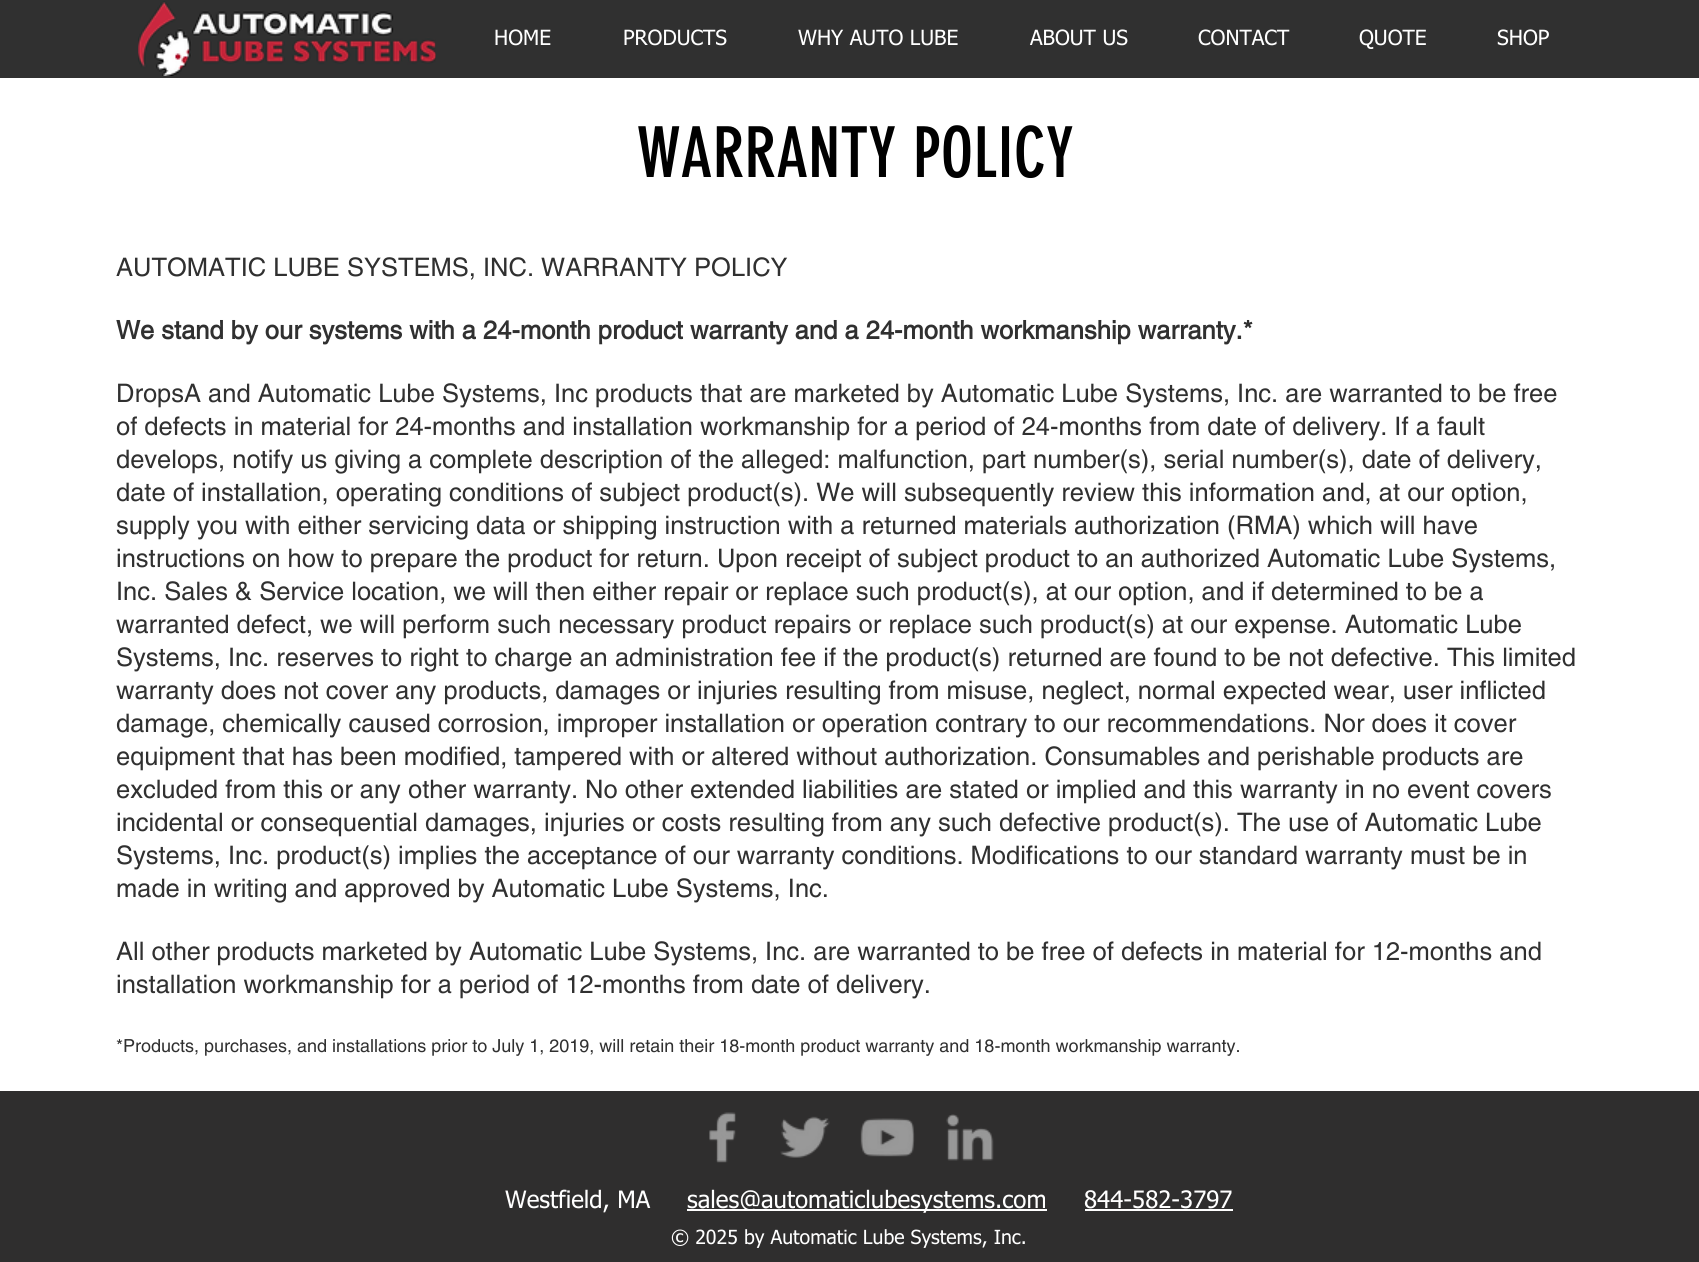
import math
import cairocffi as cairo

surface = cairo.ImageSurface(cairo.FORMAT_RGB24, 1699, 1262)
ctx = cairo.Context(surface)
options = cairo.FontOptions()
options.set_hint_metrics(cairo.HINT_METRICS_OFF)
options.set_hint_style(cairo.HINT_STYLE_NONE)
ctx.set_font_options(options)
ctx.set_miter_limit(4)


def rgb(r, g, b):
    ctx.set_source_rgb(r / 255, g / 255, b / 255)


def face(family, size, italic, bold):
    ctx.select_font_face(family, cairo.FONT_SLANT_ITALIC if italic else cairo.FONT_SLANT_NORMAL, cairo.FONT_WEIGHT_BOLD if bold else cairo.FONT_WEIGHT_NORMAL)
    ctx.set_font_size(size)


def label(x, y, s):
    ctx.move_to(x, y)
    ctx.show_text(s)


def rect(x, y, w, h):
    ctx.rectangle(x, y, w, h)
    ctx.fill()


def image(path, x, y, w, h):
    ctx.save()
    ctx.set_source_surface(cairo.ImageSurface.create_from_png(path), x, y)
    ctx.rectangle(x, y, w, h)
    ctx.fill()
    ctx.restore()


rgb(255, 255, 255)
ctx.paint()
rgb(48, 48, 48)
rect(0, 0, 1699, 78)
image('image0.png', 138, 1, 298, 75)
face('tahoma', 21, 0, 0)
rgb(255, 255, 255)
label(494, 45, 'HOME')
label(623, 45, 'PRODUCTS')
label(798, 45, 'WHY AUTO LUBE')
label(1030, 45, 'ABOUT US')
label(1198, 45, 'CONTACT')
label(1359, 45, 'QUOTE')
label(1497, 45, 'SHOP')
face('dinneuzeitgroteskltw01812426', 69, 0, 0)
rgb(0, 0, 0)
label(637, 177, 'WARRANTY POLICY')
face('helvetica', 25.5, 0, 0)
rgb(48, 48, 48)
label(116, 276, 'AUTOMATIC LUBE SYSTEMS, INC. WARRANTY POLICY')
face('helvetica', 25.5, 0, 1)
label(116, 339, 'We stand by our systems with a 24-month product warranty and a 24-month workmanship warranty.*')
face('helvetica', 25.5, 0, 0)
label(116, 402, 'DropsA and Automatic Lube Systems, Inc products that are marketed by Automatic Lube Systems, Inc. are warranted to be free')
label(116, 435, 'of defects in material for 24-months and installation workmanship for a period of 24-months from date of delivery. If a fault')
label(116, 468, 'develops, notify us giving a complete description of the alleged: malfunction, part number(s), serial number(s), date of delivery,')
label(116, 501, 'date of installation, operating conditions of subject product(s). We will subsequently review this information and, at our option,')
label(116, 534, 'supply you with either servicing data or shipping instruction with a returned materials authorization (RMA) which will have')
label(116, 567, 'instructions on how to prepare the product for return. Upon receipt of subject product to an authorized Automatic Lube Systems,')
label(116, 600, 'Inc. Sales & Service location, we will then either repair or replace such product(s), at our option, and if determined to be a')
label(116, 633, 'warranted defect, we will perform such necessary product repairs or replace such product(s) at our expense. Automatic Lube')
label(116, 666, 'Systems, Inc. reserves to right to charge an administration fee if the product(s) returned are found to be not defective. This limited')
label(116, 699, 'warranty does not cover any products, damages or injuries resulting from misuse, neglect, normal expected wear, user inflicted')
label(116, 732, 'damage, chemically caused corrosion, improper installation or operation contrary to our recommendations. Nor does it cover')
label(116, 765, 'equipment that has been modified, tampered with or altered without authorization. Consumables and perishable products are')
label(116, 798, 'excluded from this or any other warranty. No other extended liabilities are stated or implied and this warranty in no event covers')
label(116, 831, 'incidental or consequential damages, injuries or costs resulting from any such defective product(s). The use of Automatic Lube')
label(116, 864, 'Systems, Inc. product(s) implies the acceptance of our warranty conditions. Modifications to our standard warranty must be in')
label(116, 897, 'made in writing and approved by Automatic Lube Systems, Inc.')
label(116, 960, 'All other products marketed by Automatic Lube Systems, Inc. are warranted to be free of defects in material for 12-months and')
label(116, 993, 'installation workmanship for a period of 12-months from date of delivery.')
face('helvetica', 18, 0, 0)
label(116, 1052, '*Products, purchases, and installations prior to July 1, 2019, will retain their 18-month product warranty and 18-month workmanship warranty.')
rgb(47, 46, 46)
rect(0, 1091, 1699, 171)
image('image1.png', 709, 1112, 27, 51)
image('image2.png', 780, 1116, 50, 42)
image('image3.png', 860, 1118, 55, 39)
image('image4.png', 946, 1114, 48, 47)
face('tahoma', 24, 0, 0)
rgb(255, 255, 255)
label(505, 1208, 'Westfield, MA')
rect(687, 1209, 360, 2)
label(687, 1208, 'sales@automaticlubesystems.com')
label(1084, 1208, '844-582-3797')
rect(1085, 1209, 148, 2)
face('tahoma', 19.5, 0, 0)
label(671, 1244, '© 2025 by Automatic Lube Systems, Inc.')
surface.write_to_png('render.png')
